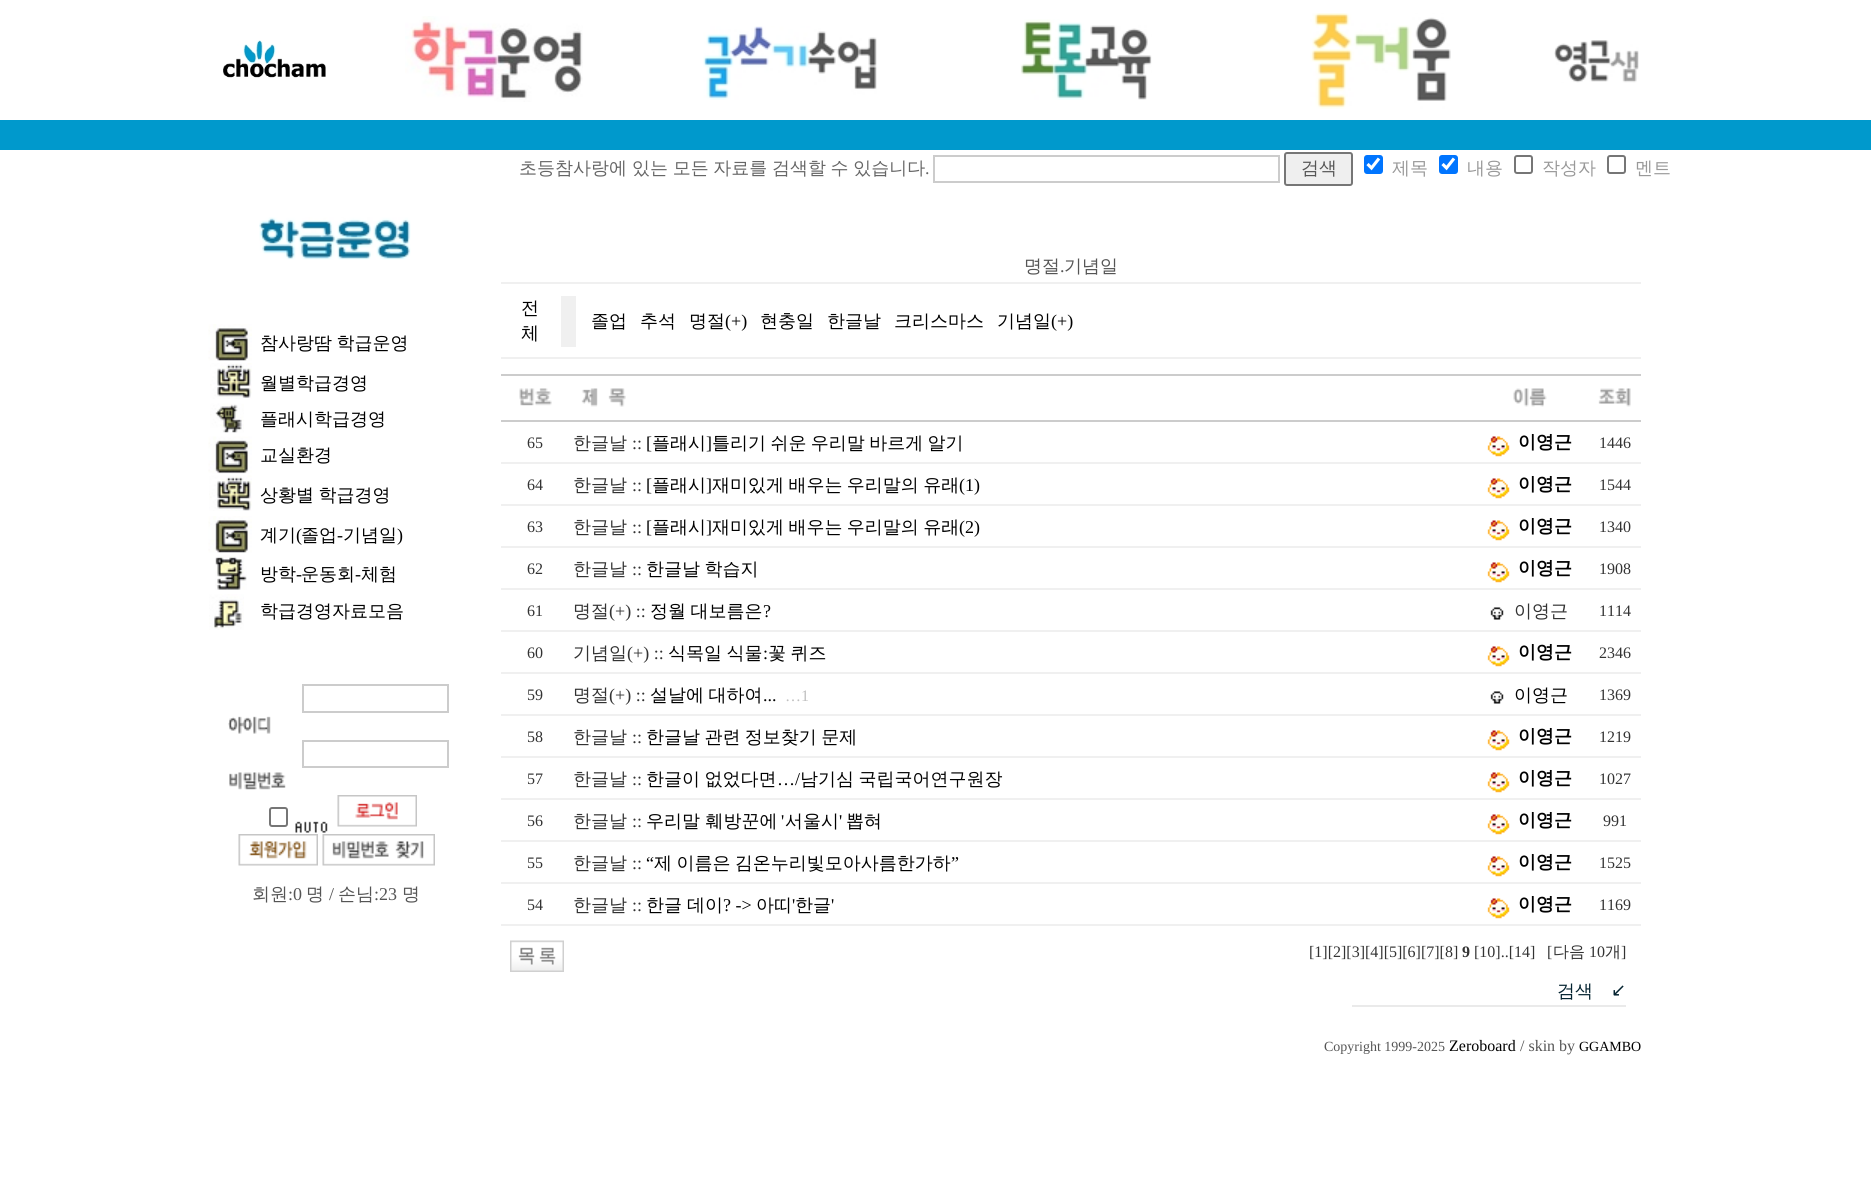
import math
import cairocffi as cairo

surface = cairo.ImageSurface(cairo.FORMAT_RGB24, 1871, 1178)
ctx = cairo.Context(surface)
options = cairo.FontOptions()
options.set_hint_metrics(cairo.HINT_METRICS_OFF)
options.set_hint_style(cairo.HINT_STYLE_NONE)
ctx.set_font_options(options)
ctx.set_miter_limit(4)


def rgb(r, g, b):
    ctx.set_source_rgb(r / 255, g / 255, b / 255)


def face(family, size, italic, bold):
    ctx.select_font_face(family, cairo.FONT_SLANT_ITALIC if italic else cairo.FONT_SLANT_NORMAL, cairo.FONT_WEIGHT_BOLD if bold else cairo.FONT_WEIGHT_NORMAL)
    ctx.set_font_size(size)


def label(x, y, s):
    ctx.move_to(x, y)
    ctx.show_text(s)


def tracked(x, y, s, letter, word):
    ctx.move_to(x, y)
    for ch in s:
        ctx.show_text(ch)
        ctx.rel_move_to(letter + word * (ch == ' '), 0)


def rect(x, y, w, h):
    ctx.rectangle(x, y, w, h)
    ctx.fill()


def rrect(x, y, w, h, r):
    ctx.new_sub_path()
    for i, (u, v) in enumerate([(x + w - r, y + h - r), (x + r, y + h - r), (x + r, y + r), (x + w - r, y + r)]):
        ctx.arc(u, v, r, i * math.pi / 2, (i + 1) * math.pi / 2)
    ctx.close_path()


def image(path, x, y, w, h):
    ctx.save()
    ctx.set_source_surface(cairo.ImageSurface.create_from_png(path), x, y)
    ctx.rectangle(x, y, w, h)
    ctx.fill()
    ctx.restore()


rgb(255, 255, 255)
ctx.paint()
image('image0.png', 223, 40, 103, 38)
image('image1.png', 405, 16, 178, 86)
image('image2.png', 703, 26, 174, 74)
image('image3.png', 1020, 19, 132, 81)
image('image4.png', 1310, 13, 141, 96)
image('image5.png', 1554, 40, 85, 43)
rgb(0, 153, 204)
rect(0, 120, 1871, 30)
face('WenQuanYi Zen Hei Medium', 18, 0, 0)
rgb(102, 102, 102)
label(519, 174, '초등참사랑에')
tracked(632, 174, '있는 모든 자료를 검색할 수 있습니다', 0, -0.75)
face('Liberation Serif', 18, 0, 0)
label(925, 174, '.')
ctx.rectangle(934, 156, 345, 26)
rgb(204, 204, 204)
ctx.stroke()
rgb(239, 239, 239)
rrect(1285, 153, 67, 32, 2)
ctx.fill_preserve()
rgb(118, 118, 118)
ctx.stroke()
face('WenQuanYi Zen Hei Medium', 18, 0, 0)
rgb(85, 85, 85)
label(1301, 174, '검색')
rgb(0, 117, 255)
rrect(1364, 155, 19, 19, 3)
ctx.fill()
ctx.new_path()
ctx.move_to(1367.5, 164)
ctx.line_to(1371.5, 168)
ctx.line_to(1379, 158.5)
rgb(255, 255, 255)
ctx.set_line_width(3.1)
ctx.stroke()
rgb(153, 153, 153)
label(1392, 174, '제목')
rgb(0, 117, 255)
rrect(1439, 155, 19, 19, 3)
ctx.fill()
ctx.new_path()
ctx.move_to(1442.5, 164)
ctx.line_to(1446.5, 168)
ctx.line_to(1454, 158.5)
rgb(255, 255, 255)
ctx.stroke()
rgb(153, 153, 153)
label(1467, 174, '내용')
rrect(1515, 156, 17, 17, 2)
rgb(118, 118, 118)
ctx.set_line_width(2)
ctx.stroke()
rgb(153, 153, 153)
label(1542, 174, '작성자')
rrect(1608, 156, 17, 17, 2)
rgb(118, 118, 118)
ctx.stroke()
rgb(153, 153, 153)
label(1635, 174, '멘트')
image('image6.png', 259, 217, 152, 43)
image('image7.png', 208, 324, 44, 37)
rgb(0, 0, 0)
tracked(260, 349, '참사랑땀 학급운영', 0, -1)
image('image8.png', 210, 363, 42, 36)
label(260, 389, '월별학급경영')
image('image9.png', 210, 403, 34, 30)
label(260, 425, '플래시학급경영')
image('image10.png', 208, 436, 44, 38)
label(260, 461, '교실환경')
image('image11.png', 209, 475, 43, 36)
tracked(260, 501, '상황별 학급경영', 0, -1)
image('image7.png', 208, 516, 44, 37)
label(260, 541, '계기')
face('Liberation Serif', 18, 0, 0)
label(296, 541, '(')
face('WenQuanYi Zen Hei Medium', 18, 0, 0)
label(301, 541, '졸업')
face('Liberation Serif', 18, 0, 0)
label(337, 541, '-')
face('WenQuanYi Zen Hei Medium', 18, 0, 0)
label(343, 541, '기념일')
face('Liberation Serif', 18, 0, 0)
label(397, 541, ')')
image('image12.png', 215, 555, 32, 35)
face('WenQuanYi Zen Hei Medium', 18, 0, 0)
label(260, 580, '방학')
face('Liberation Serif', 18, 0, 0)
label(296, 580, '-')
face('WenQuanYi Zen Hei Medium', 18, 0, 0)
label(301, 580, '운동회')
face('Liberation Serif', 18, 0, 0)
label(355, 580, '-')
face('WenQuanYi Zen Hei Medium', 18, 0, 0)
label(361, 580, '체험')
image('image13.png', 209, 594, 35, 36)
label(260, 617, '학급경영자료모음')
ctx.rectangle(303, 685, 145, 27)
rgb(204, 204, 204)
ctx.stroke()
image('image14.png', 228, 716, 43, 18)
ctx.rectangle(303, 741, 145, 26)
ctx.stroke()
image('image15.png', 229, 772, 57, 18)
rrect(270, 808, 17, 18, 2)
rgb(118, 118, 118)
ctx.stroke()
image('image16.png', 295, 821, 33, 12)
image('image17.png', 337, 795, 80, 32)
image('image18.png', 238, 834, 80, 32)
image('image19.png', 322, 834, 113, 32)
rgb(85, 85, 85)
label(252, 900, '회원')
face('Liberation Serif', 18, 0, 0)
label(288, 900, ':0')
face('WenQuanYi Zen Hei Medium', 18, 0, 0)
label(306, 900, '명')
face('Liberation Serif', 18, 0, 0)
label(329, 900, '/')
face('WenQuanYi Zen Hei Medium', 18, 0, 0)
label(338, 900, '손님')
face('Liberation Serif', 18, 0, 0)
label(374, 900, ':23')
face('WenQuanYi Zen Hei Medium', 18, 0, 0)
label(402, 900, '명')
label(1024, 272, '명절')
face('Liberation Serif', 18, 0, 0)
label(1060, 272, '.')
face('WenQuanYi Zen Hei Medium', 18, 0, 0)
label(1064, 272, '기념일')
rgb(240, 240, 240)
rect(501, 282, 1140, 2)
rect(501, 357, 1140, 2)
rgb(0, 0, 0)
label(521, 314, '전')
label(521, 339, '체')
rgb(240, 240, 240)
rect(561, 296, 15, 51)
rgb(0, 0, 0)
label(591, 327, '졸업')
label(640, 327, '추석')
label(689, 327, '명절')
face('Liberation Serif', 18, 0, 0)
label(725, 327, '(+)')
face('WenQuanYi Zen Hei Medium', 18, 0, 0)
label(760, 327, '현충일')
label(827, 327, '한글날')
label(894, 327, '크리스마스')
label(997, 327, '기념일')
face('Liberation Serif', 18, 0, 0)
label(1051, 327, '(+)')
rgb(204, 204, 204)
rect(501, 374, 1140, 2)
rect(501, 420, 1140, 2)
image('image20.png', 519, 388, 33, 18)
image('image21.png', 581, 388, 45, 19)
image('image22.png', 1513, 388, 34, 19)
image('image23.png', 1598, 388, 33, 19)
rgb(240, 240, 240)
rect(501, 462, 1140, 2)
face('Liberation Serif', 16, 0, 0)
rgb(51, 51, 51)
label(527, 448, '65')
face('WenQuanYi Zen Hei Medium', 18, 0, 0)
label(573, 449, '한글날')
face('Liberation Serif', 18, 0, 0)
label(632, 449, '::')
rgb(0, 0, 0)
label(646, 449, '[')
face('WenQuanYi Zen Hei Medium', 18, 0, 0)
label(652, 449, '플래시')
face('Liberation Serif', 18, 0, 0)
label(706, 449, ']')
face('WenQuanYi Zen Hei Medium', 18, 0, 0)
tracked(712, 449, '틀리기 쉬운 우리말 바르게 알기', 0, -1)
image('image24.png', 1487, 436, 23, 21)
face('WenQuanYi Zen Hei', 18, 0, 1)
label(1518, 448, '이영근')
face('Liberation Serif', 16, 0, 0)
rgb(51, 51, 51)
label(1599, 448, '1446')
rgb(240, 240, 240)
rect(501, 504, 1140, 2)
rgb(51, 51, 51)
label(527, 490, '64')
face('WenQuanYi Zen Hei Medium', 18, 0, 0)
label(573, 491, '한글날')
face('Liberation Serif', 18, 0, 0)
label(632, 491, '::')
rgb(0, 0, 0)
label(646, 491, '[')
face('WenQuanYi Zen Hei Medium', 18, 0, 0)
label(652, 491, '플래시')
face('Liberation Serif', 18, 0, 0)
label(706, 491, ']')
face('WenQuanYi Zen Hei Medium', 18, 0, 0)
tracked(712, 491, '재미있게 배우는 우리말의 유래', 0, -1)
face('Liberation Serif', 18, 0, 0)
label(959, 491, '(1)')
image('image24.png', 1487, 478, 23, 21)
face('WenQuanYi Zen Hei', 18, 0, 1)
label(1518, 490, '이영근')
face('Liberation Serif', 16, 0, 0)
rgb(51, 51, 51)
label(1599, 490, '1544')
rgb(240, 240, 240)
rect(501, 546, 1140, 2)
rgb(51, 51, 51)
label(527, 532, '63')
face('WenQuanYi Zen Hei Medium', 18, 0, 0)
label(573, 533, '한글날')
face('Liberation Serif', 18, 0, 0)
label(632, 533, '::')
rgb(0, 0, 0)
label(646, 533, '[')
face('WenQuanYi Zen Hei Medium', 18, 0, 0)
label(652, 533, '플래시')
face('Liberation Serif', 18, 0, 0)
label(706, 533, ']')
face('WenQuanYi Zen Hei Medium', 18, 0, 0)
tracked(712, 533, '재미있게 배우는 우리말의 유래', 0, -1)
face('Liberation Serif', 18, 0, 0)
label(959, 533, '(2)')
image('image24.png', 1487, 520, 23, 21)
face('WenQuanYi Zen Hei', 18, 0, 1)
label(1518, 532, '이영근')
face('Liberation Serif', 16, 0, 0)
rgb(51, 51, 51)
label(1599, 532, '1340')
rgb(240, 240, 240)
rect(501, 588, 1140, 2)
rgb(51, 51, 51)
label(527, 574, '62')
face('WenQuanYi Zen Hei Medium', 18, 0, 0)
label(573, 575, '한글날')
face('Liberation Serif', 18, 0, 0)
label(632, 575, '::')
face('WenQuanYi Zen Hei Medium', 18, 0, 0)
rgb(0, 0, 0)
tracked(646, 575, '한글날 학습지', 0, -1)
image('image24.png', 1487, 562, 23, 21)
face('WenQuanYi Zen Hei', 18, 0, 1)
label(1518, 574, '이영근')
face('Liberation Serif', 16, 0, 0)
rgb(51, 51, 51)
label(1599, 574, '1908')
rgb(240, 240, 240)
rect(501, 630, 1140, 2)
rgb(51, 51, 51)
label(527, 616, '61')
face('WenQuanYi Zen Hei Medium', 18, 0, 0)
label(573, 617, '명절')
face('Liberation Serif', 18, 0, 0)
label(609, 617, '(+) ::')
face('WenQuanYi Zen Hei Medium', 18, 0, 0)
rgb(0, 0, 0)
tracked(650, 617, '정월 대보름은', 0, -1)
face('Liberation Serif', 18, 0, 0)
label(763, 617, '?')
image('image25.png', 1490, 607, 14, 13)
face('WenQuanYi Zen Hei Medium', 18, 0, 0)
rgb(51, 51, 51)
label(1514, 617, '이영근')
face('Liberation Serif', 16, 0, 0)
label(1599, 616, '1114')
rgb(240, 240, 240)
rect(501, 672, 1140, 2)
rgb(51, 51, 51)
label(527, 658, '60')
face('WenQuanYi Zen Hei Medium', 18, 0, 0)
label(573, 659, '기념일')
face('Liberation Serif', 18, 0, 0)
label(627, 659, '(+) ::')
face('WenQuanYi Zen Hei Medium', 18, 0, 0)
rgb(0, 0, 0)
tracked(668, 659, '식목일 식물', 0, -1)
face('Liberation Serif', 18, 0, 0)
label(763, 659, ':')
face('WenQuanYi Zen Hei Medium', 18, 0, 0)
tracked(768, 659, '꽃 퀴즈', 0, -1)
image('image24.png', 1487, 646, 23, 21)
face('WenQuanYi Zen Hei', 18, 0, 1)
label(1518, 658, '이영근')
face('Liberation Serif', 16, 0, 0)
rgb(51, 51, 51)
label(1599, 658, '2346')
rgb(240, 240, 240)
rect(501, 714, 1140, 2)
rgb(51, 51, 51)
label(527, 700, '59')
face('WenQuanYi Zen Hei Medium', 18, 0, 0)
label(573, 701, '명절')
face('Liberation Serif', 18, 0, 0)
label(609, 701, '(+) ::')
face('WenQuanYi Zen Hei Medium', 18, 0, 0)
rgb(0, 0, 0)
tracked(650, 701, '설날에 대하여', 0, -1)
face('Liberation Serif', 18, 0, 0)
label(763, 701, '...')
face('Liberation Serif', 16, 0, 0)
rgb(192, 192, 192)
label(785, 701, '…1')
image('image25.png', 1490, 691, 14, 13)
face('WenQuanYi Zen Hei Medium', 18, 0, 0)
rgb(0, 0, 0)
label(1514, 701, '이영근')
face('Liberation Serif', 16, 0, 0)
rgb(51, 51, 51)
label(1599, 700, '1369')
rgb(240, 240, 240)
rect(501, 756, 1140, 2)
rgb(51, 51, 51)
label(527, 742, '58')
face('WenQuanYi Zen Hei Medium', 18, 0, 0)
label(573, 743, '한글날')
face('Liberation Serif', 18, 0, 0)
label(632, 743, '::')
face('WenQuanYi Zen Hei Medium', 18, 0, 0)
rgb(0, 0, 0)
tracked(646, 743, '한글날 관련 정보찾기 문제', 0, -1)
image('image24.png', 1487, 730, 23, 21)
face('WenQuanYi Zen Hei', 18, 0, 1)
label(1518, 742, '이영근')
face('Liberation Serif', 16, 0, 0)
rgb(51, 51, 51)
label(1599, 742, '1219')
rgb(240, 240, 240)
rect(501, 798, 1140, 2)
rgb(51, 51, 51)
label(527, 784, '57')
face('WenQuanYi Zen Hei Medium', 18, 0, 0)
label(573, 785, '한글날')
face('Liberation Serif', 18, 0, 0)
label(632, 785, '::')
face('WenQuanYi Zen Hei Medium', 18, 0, 0)
rgb(0, 0, 0)
tracked(646, 785, '한글이 없었다면', 0, -1)
face('Liberation Serif', 18, 0, 0)
label(777, 785, '…/')
face('WenQuanYi Zen Hei Medium', 18, 0, 0)
tracked(800, 785, '남기심 국립국어연구원장', 0, -1)
image('image24.png', 1487, 772, 23, 21)
face('WenQuanYi Zen Hei', 18, 0, 1)
label(1518, 784, '이영근')
face('Liberation Serif', 16, 0, 0)
rgb(51, 51, 51)
label(1599, 784, '1027')
rgb(240, 240, 240)
rect(501, 840, 1140, 2)
rgb(51, 51, 51)
label(527, 826, '56')
face('WenQuanYi Zen Hei Medium', 18, 0, 0)
label(573, 827, '한글날')
rgb(0, 0, 0)
label(646, 827, '우리말 훼방꾼에')
face('Liberation Serif', 18, 0, 0)
label(781, 827, '\'')
face('WenQuanYi Zen Hei Medium', 18, 0, 0)
label(785, 827, '서울시')
face('Liberation Serif', 18, 0, 0)
label(839, 827, '\'')
face('WenQuanYi Zen Hei Medium', 18, 0, 0)
label(846, 827, '뽑혀')
face('Liberation Serif', 18, 0, 0)
rgb(51, 51, 51)
label(632, 827, '::')
image('image24.png', 1487, 814, 23, 21)
face('WenQuanYi Zen Hei', 18, 0, 1)
rgb(0, 0, 0)
label(1518, 826, '이영근')
face('Liberation Serif', 16, 0, 0)
rgb(51, 51, 51)
label(1603, 826, '991')
rgb(240, 240, 240)
rect(501, 882, 1140, 2)
rgb(51, 51, 51)
label(527, 868, '55')
face('WenQuanYi Zen Hei Medium', 18, 0, 0)
label(573, 869, '한글날')
face('Liberation Serif', 18, 0, 0)
rgb(0, 0, 0)
label(646, 869, '“')
face('WenQuanYi Zen Hei Medium', 18, 0, 0)
tracked(654, 869, '제 이름은 김온누리빛모아사름한가하', 0, -1)
face('Liberation Serif', 18, 0, 0)
label(951, 869, '”')
rgb(51, 51, 51)
label(632, 869, '::')
image('image24.png', 1487, 856, 23, 21)
face('WenQuanYi Zen Hei', 18, 0, 1)
rgb(0, 0, 0)
label(1518, 868, '이영근')
face('Liberation Serif', 16, 0, 0)
rgb(51, 51, 51)
label(1599, 868, '1525')
rgb(240, 240, 240)
rect(501, 924, 1140, 2)
rgb(51, 51, 51)
label(527, 910, '54')
face('WenQuanYi Zen Hei Medium', 18, 0, 0)
label(573, 911, '한글날')
rgb(0, 0, 0)
label(646, 911, '한글')
label(687, 911, '데이')
face('Liberation Serif', 18, 0, 0)
label(723, 911, '? ->')
face('WenQuanYi Zen Hei Medium', 18, 0, 0)
label(756, 911, '아띠')
face('Liberation Serif', 18, 0, 0)
label(792, 911, '\'')
face('WenQuanYi Zen Hei Medium', 18, 0, 0)
label(795, 911, '한글')
face('Liberation Serif', 18, 0, 0)
label(831, 911, '\'')
rgb(51, 51, 51)
label(632, 911, '::')
image('image24.png', 1487, 898, 23, 21)
face('WenQuanYi Zen Hei', 18, 0, 1)
rgb(0, 0, 0)
label(1518, 910, '이영근')
face('Liberation Serif', 16, 0, 0)
rgb(51, 51, 51)
label(1599, 910, '1169')
image('image26.png', 510, 940, 54, 32)
label(1309, 957, '[1][2][3][4][5][6][7][8]')
face('Liberation Serif', 16, 0, 1)
label(1462, 957, '9')
face('Liberation Serif', 16, 0, 0)
label(1474, 957, '[10]..[14]')
label(1547, 957, '[')
face('WenQuanYi Zen Hei Medium', 16, 0, 0)
label(1553, 957, '다음')
face('Liberation Serif', 16, 0, 0)
label(1589, 957, '10')
face('WenQuanYi Zen Hei Medium', 16, 0, 0)
label(1605, 957, '개')
face('Liberation Serif', 16, 0, 0)
label(1621, 957, ']')
face('WenQuanYi Zen Hei Medium', 18, 0, 0)
rgb(4, 35, 48)
label(1557, 997, '검색')
face('DejaVu Sans', 18, 0, 0)
label(1611, 996, '↙')
rgb(234, 234, 234)
rect(1352, 1005, 274, 2)
face('Liberation Serif', 14, 0, 0)
rgb(85, 85, 85)
label(1324, 1051, 'Copyright 1999-2025')
face('Liberation Serif', 16, 0, 0)
rgb(0, 0, 0)
label(1449, 1051, 'Zeroboard')
rgb(85, 85, 85)
label(1520, 1051, '/ skin by')
face('Liberation Serif', 14, 0, 0)
rgb(0, 0, 0)
label(1579, 1051, 'GGAMBO')
surface.write_to_png('render.png')
